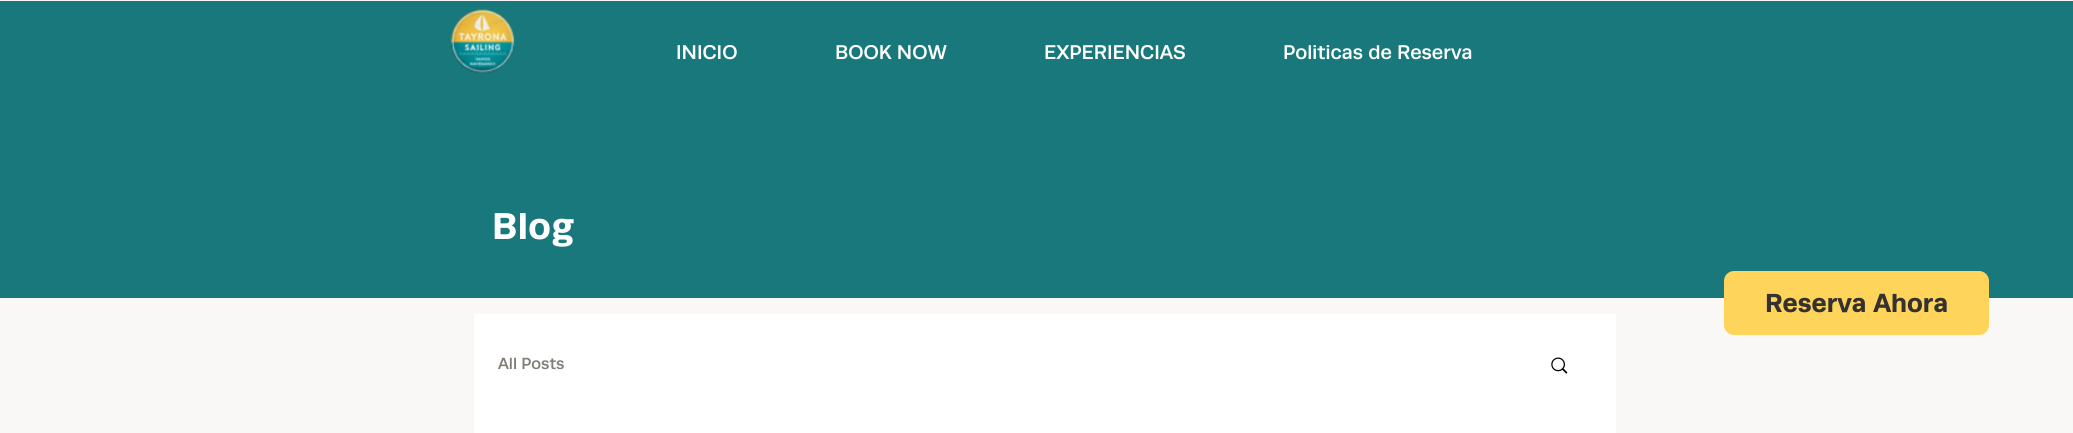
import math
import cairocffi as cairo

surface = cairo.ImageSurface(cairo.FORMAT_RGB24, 2073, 433)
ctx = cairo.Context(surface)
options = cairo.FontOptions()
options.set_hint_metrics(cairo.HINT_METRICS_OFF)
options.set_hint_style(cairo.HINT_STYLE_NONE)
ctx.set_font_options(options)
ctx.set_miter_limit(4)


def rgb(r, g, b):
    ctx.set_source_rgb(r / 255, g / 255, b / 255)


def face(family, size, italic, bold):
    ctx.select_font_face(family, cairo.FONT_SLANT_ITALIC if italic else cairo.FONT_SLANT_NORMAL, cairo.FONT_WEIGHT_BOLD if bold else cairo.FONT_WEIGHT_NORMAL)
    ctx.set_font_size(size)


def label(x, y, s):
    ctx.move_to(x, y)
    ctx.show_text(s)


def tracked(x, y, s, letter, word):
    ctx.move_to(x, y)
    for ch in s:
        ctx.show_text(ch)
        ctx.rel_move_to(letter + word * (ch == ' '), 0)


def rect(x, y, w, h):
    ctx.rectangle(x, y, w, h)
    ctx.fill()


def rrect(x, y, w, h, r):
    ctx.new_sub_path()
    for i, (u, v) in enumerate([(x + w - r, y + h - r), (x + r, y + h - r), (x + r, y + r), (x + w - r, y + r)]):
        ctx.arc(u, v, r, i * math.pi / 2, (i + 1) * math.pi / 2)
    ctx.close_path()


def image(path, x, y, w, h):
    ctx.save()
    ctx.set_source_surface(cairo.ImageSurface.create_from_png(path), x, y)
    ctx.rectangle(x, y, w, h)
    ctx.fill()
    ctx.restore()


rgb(250, 247, 247)
ctx.paint()
rgb(25, 120, 123)
rect(0, 1, 2073, 297)
image('image0.png', 450, 9, 65, 65)
face('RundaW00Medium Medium', 20, 0, 0)
rgb(255, 255, 255)
label(676, 59, 'INICIO')
label(835, 59, 'BOOK NOW')
label(1044, 59, 'EXPERIENCIAS')
label(1283, 59, 'Politicas de Reserva')
face('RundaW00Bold', 37.5, 0, 1)
tracked(492, 239, 'Blog', 0.5, 0)
rect(474, 314, 1142, 119)
face('RundaW00Medium Medium', 16.25, 0, 0)
rgb(130, 126, 122)
label(498, 369, 'All Posts')
image('image1.png', 1551, 357, 17, 17)
rgb(255, 212, 90)
rrect(1724, 271, 265, 64, 10)
ctx.fill()
face('RundaW00Bold', 26.25, 0, 1)
rgb(53, 49, 49)
label(1765, 312, 'Reserva Ahora')
surface.write_to_png('render.png')
